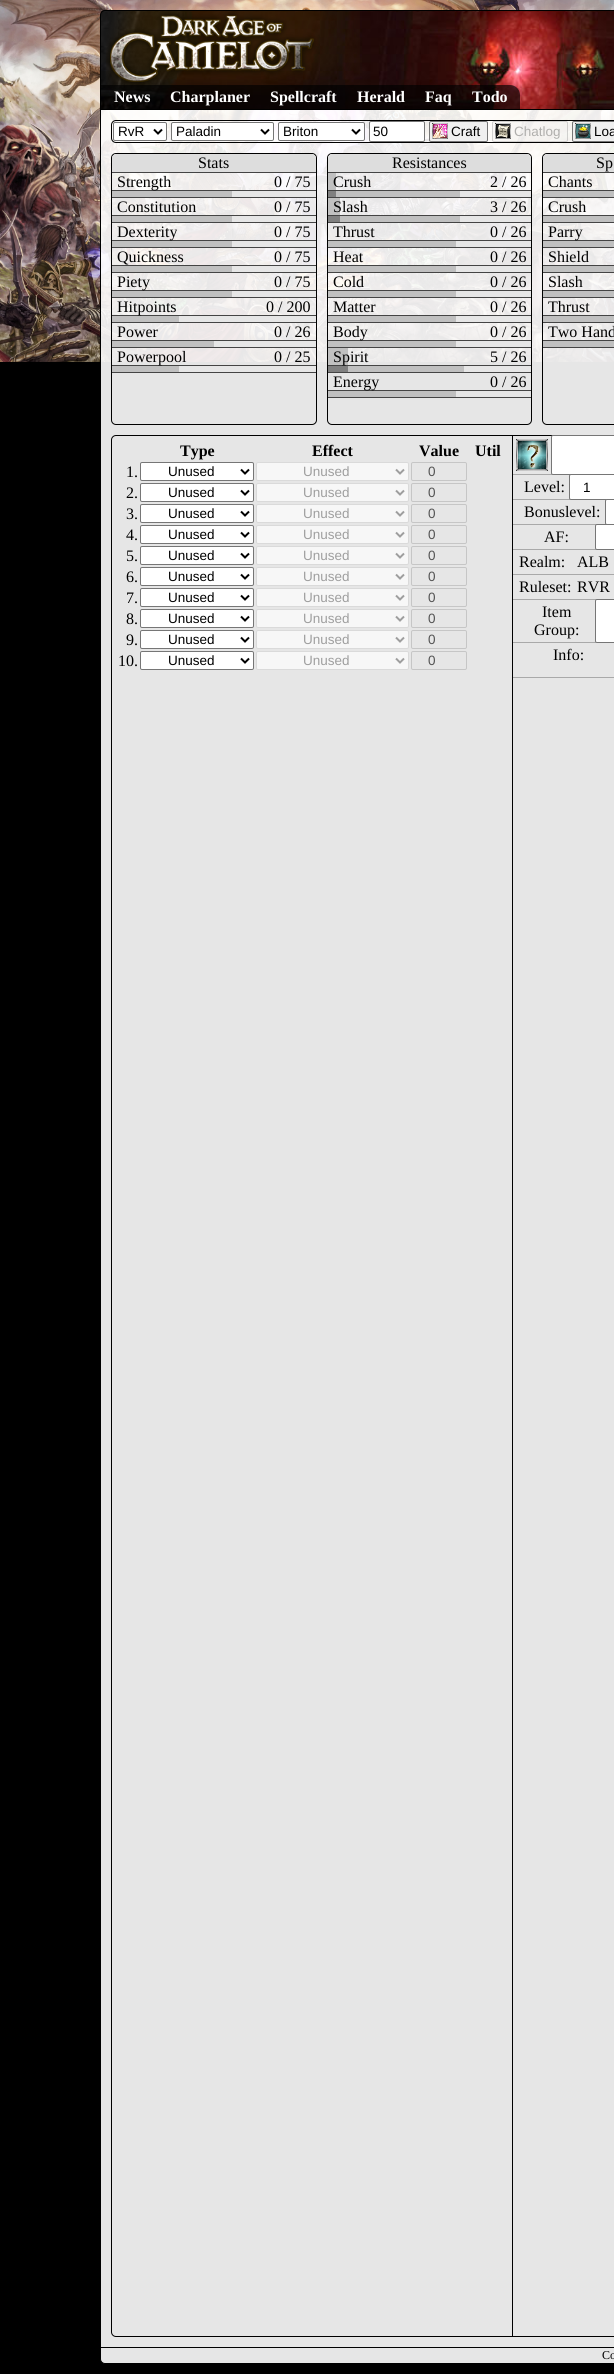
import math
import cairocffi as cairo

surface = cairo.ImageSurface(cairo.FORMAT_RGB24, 614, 2374)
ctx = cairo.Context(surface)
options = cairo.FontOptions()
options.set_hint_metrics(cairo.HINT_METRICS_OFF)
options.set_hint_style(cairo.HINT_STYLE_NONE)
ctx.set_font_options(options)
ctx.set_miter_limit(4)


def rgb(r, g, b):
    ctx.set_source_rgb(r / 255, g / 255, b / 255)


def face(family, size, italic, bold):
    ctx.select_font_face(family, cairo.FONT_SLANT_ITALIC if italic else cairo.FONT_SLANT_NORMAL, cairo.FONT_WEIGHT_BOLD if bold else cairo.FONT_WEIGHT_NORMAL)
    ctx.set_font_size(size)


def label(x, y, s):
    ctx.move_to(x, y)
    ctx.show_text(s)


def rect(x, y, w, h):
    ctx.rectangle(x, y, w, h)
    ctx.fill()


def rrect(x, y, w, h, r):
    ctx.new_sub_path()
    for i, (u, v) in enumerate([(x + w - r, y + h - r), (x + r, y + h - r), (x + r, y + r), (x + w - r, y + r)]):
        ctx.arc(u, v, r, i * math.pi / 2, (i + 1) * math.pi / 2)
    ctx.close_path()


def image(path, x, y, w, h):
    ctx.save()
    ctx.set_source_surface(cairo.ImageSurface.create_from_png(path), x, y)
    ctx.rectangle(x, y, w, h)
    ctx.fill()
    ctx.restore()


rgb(0, 0, 0)
ctx.paint()
image('image0.png', 0, 0, 614, 362)
image('image1.png', 101, 10, 513, 99)
ctx.new_path()
ctx.move_to(105, 10.5)
ctx.line_to(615, 10.5)
ctx.curve_to(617.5, 10.5, 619.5, 12.5, 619.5, 15)
ctx.line_to(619.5, 109.5)
ctx.line_to(100.5, 109.5)
ctx.line_to(100.5, 15)
ctx.curve_to(100.5, 12.5, 102.5, 10.5, 105, 10.5)
ctx.close_path()
rgb(0, 0, 0)
ctx.set_line_width(1)
ctx.stroke()
image('image2.png', 106, 11, 254, 84)
ctx.set_source_rgba(0, 0, 0, 0.66)
ctx.new_path()
ctx.move_to(101, 85)
ctx.line_to(510, 85)
ctx.curve_to(515.5, 85, 520, 89.5, 520, 95)
ctx.line_to(520, 109)
ctx.line_to(101, 109)
ctx.close_path()
ctx.fill()
face('Liberation Serif', 16, 0, 1)
rgb(255, 255, 255)
label(114, 102, 'News')
label(170, 102, 'Charplaner')
label(270, 102, 'Spellcraft')
label(357, 102, 'Herald')
label(425, 102, 'Faq')
label(472, 102, 'Todo')
ctx.set_source_rgba(1, 1, 1, 0.9)
rect(101, 110, 513, 2237)
rgb(0, 0, 0)
rect(100, 110, 1, 252)
rrect(111.5, 120.5, 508, 22, 4.5)
ctx.stroke()
rgb(255, 255, 255)
rrect(113.5, 122.5, 53, 18, 1.5)
ctx.fill_preserve()
rgb(118, 118, 118)
ctx.stroke()
ctx.new_path()
ctx.move_to(154, 129.5)
ctx.line_to(158, 133.5)
ctx.line_to(162, 129.5)
rgb(0, 0, 0)
ctx.set_line_width(2)
ctx.stroke()
face('Liberation Sans', 13.5, 0, 0)
label(118, 136, 'RvR')
rgb(255, 255, 255)
rrect(171.5, 122.5, 102, 18, 1.5)
ctx.fill_preserve()
rgb(118, 118, 118)
ctx.set_line_width(1)
ctx.stroke()
ctx.new_path()
ctx.move_to(261, 129.5)
ctx.line_to(265, 133.5)
ctx.line_to(269, 129.5)
rgb(0, 0, 0)
ctx.set_line_width(2)
ctx.stroke()
label(176, 136, 'Paladin')
rgb(255, 255, 255)
rrect(278.5, 122.5, 86, 18, 1.5)
ctx.fill_preserve()
rgb(118, 118, 118)
ctx.set_line_width(1)
ctx.stroke()
ctx.new_path()
ctx.move_to(352, 129.5)
ctx.line_to(356, 133.5)
ctx.line_to(360, 129.5)
rgb(0, 0, 0)
ctx.set_line_width(2)
ctx.stroke()
label(283, 136, 'Briton')
rgb(255, 255, 255)
rrect(369.5, 121.5, 55, 20, 1.5)
ctx.fill_preserve()
rgb(118, 118, 118)
ctx.set_line_width(1)
ctx.stroke()
rgb(0, 0, 0)
label(373, 136, '50')
rgb(239, 239, 239)
rrect(429.5, 121.5, 58, 20, 1.5)
ctx.fill_preserve()
rgb(118, 118, 118)
ctx.stroke()
image('image3.png', 432, 123, 16, 16)
rgb(0, 0, 0)
label(451, 136, 'Craft')
ctx.set_source_rgba(0.937, 0.937, 0.937, 0.3)
rrect(492, 121, 76, 21, 2)
ctx.fill()
rrect(492.5, 121.5, 75, 20, 1.5)
ctx.set_source_rgba(0.463, 0.463, 0.463, 0.3)
ctx.stroke()
image('image4.png', 495, 123, 16, 16)
rgb(176, 175, 173)
label(514, 136, 'Chatlog')
rgb(239, 239, 239)
rrect(572.5, 121.5, 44, 20, 1.5)
ctx.fill_preserve()
rgb(118, 118, 118)
ctx.stroke()
image('image5.png', 575, 123, 16, 16)
rgb(0, 0, 0)
label(594, 136, 'Loa')
rrect(111.5, 153.5, 205, 271, 4.5)
ctx.stroke()
rgb(221, 221, 221)
ctx.new_path()
ctx.move_to(116, 154)
ctx.line_to(312, 154)
ctx.curve_to(314, 154, 316, 156, 316, 158)
ctx.line_to(316, 173)
ctx.line_to(112, 173)
ctx.line_to(112, 158)
ctx.curve_to(112, 156, 114, 154, 116, 154)
ctx.close_path()
ctx.fill()
rgb(68, 68, 68)
rect(112, 172, 204, 1)
face('Liberation Serif', 16, 0, 0)
rgb(0, 0, 0)
label(198, 168, 'Stats')
rgb(68, 68, 68)
rect(112, 197, 204, 1)
rect(112, 190, 204, 1)
rgb(0, 0, 0)
label(117, 187, 'Strength')
label(274, 187, '0 / 75')
rgb(192, 192, 192)
rect(112, 191, 120, 6)
rgb(230, 230, 230)
rect(232, 191, 84, 6)
rgb(68, 68, 68)
rect(112, 222, 204, 1)
rgb(0, 0, 0)
label(117, 212, 'Constitution')
label(274, 212, '0 / 75')
rgb(68, 68, 68)
rect(112, 215, 204, 1)
rgb(192, 192, 192)
rect(112, 216, 120, 6)
rgb(230, 230, 230)
rect(232, 216, 84, 6)
rgb(68, 68, 68)
rect(112, 247, 204, 1)
rect(112, 240, 204, 1)
rgb(0, 0, 0)
label(117, 237, 'Dexterity')
label(274, 237, '0 / 75')
rgb(192, 192, 192)
rect(112, 241, 120, 6)
rgb(230, 230, 230)
rect(232, 241, 84, 6)
rgb(68, 68, 68)
rect(112, 272, 204, 1)
rgb(0, 0, 0)
label(117, 262, 'Quickness')
label(274, 262, '0 / 75')
rgb(68, 68, 68)
rect(112, 265, 204, 1)
rgb(192, 192, 192)
rect(112, 266, 120, 6)
rgb(230, 230, 230)
rect(232, 266, 84, 6)
rgb(68, 68, 68)
rect(112, 297, 204, 1)
rect(112, 290, 204, 1)
rgb(0, 0, 0)
label(117, 287, 'Piety')
label(274, 287, '0 / 75')
rgb(192, 192, 192)
rect(112, 291, 120, 6)
rgb(230, 230, 230)
rect(232, 291, 84, 6)
rgb(68, 68, 68)
rect(112, 322, 204, 1)
rect(112, 315, 204, 1)
rgb(0, 0, 0)
label(117, 312, 'Hitpoints')
label(266, 312, '0 / 200')
rgb(192, 192, 192)
rect(112, 316, 67, 6)
rgb(230, 230, 230)
rect(179, 316, 137, 6)
rgb(68, 68, 68)
rect(112, 347, 204, 1)
rgb(0, 0, 0)
label(117, 337, 'Power')
label(274, 337, '0 / 26')
rgb(68, 68, 68)
rect(112, 340, 204, 1)
rgb(192, 192, 192)
rect(112, 341, 102, 6)
rgb(230, 230, 230)
rect(214, 341, 102, 6)
rgb(68, 68, 68)
rect(112, 372, 204, 1)
rect(112, 365, 204, 1)
rgb(0, 0, 0)
label(117, 362, 'Powerpool')
label(274, 362, '0 / 25')
rgb(192, 192, 192)
rect(112, 366, 67, 6)
rrect(327.5, 153.5, 204, 271, 4.5)
rgb(0, 0, 0)
ctx.stroke()
rgb(221, 221, 221)
ctx.new_path()
ctx.move_to(332, 154)
ctx.line_to(527, 154)
ctx.curve_to(529, 154, 531, 156, 531, 158)
ctx.line_to(531, 173)
ctx.line_to(328, 173)
ctx.line_to(328, 158)
ctx.curve_to(328, 156, 330, 154, 332, 154)
ctx.close_path()
ctx.fill()
rgb(68, 68, 68)
rect(328, 172, 203, 1)
rgb(0, 0, 0)
label(392, 168, 'Resistances')
rgb(68, 68, 68)
rect(328, 197, 203, 1)
rect(328, 190, 203, 1)
rgb(192, 192, 192)
rect(328, 173, 8, 17)
rgb(0, 0, 0)
label(333, 187, 'Crush')
label(490, 187, '2 / 26')
rgb(192, 192, 192)
rect(328, 191, 132, 6)
rgb(128, 128, 128)
rect(328, 191, 8, 6)
rgb(230, 230, 230)
rect(460, 191, 71, 6)
rgb(68, 68, 68)
rect(328, 222, 203, 1)
rect(328, 215, 203, 1)
rgb(192, 192, 192)
rect(328, 198, 12, 17)
rgb(0, 0, 0)
label(333, 212, 'Slash')
label(490, 212, '3 / 26')
rgb(128, 128, 128)
rect(328, 216, 12, 6)
rgb(192, 192, 192)
rect(340, 216, 120, 6)
rgb(230, 230, 230)
rect(460, 216, 71, 6)
rgb(68, 68, 68)
rect(328, 247, 203, 1)
rgb(0, 0, 0)
label(333, 237, 'Thrust')
label(490, 237, '0 / 26')
rgb(68, 68, 68)
rect(328, 240, 203, 1)
rgb(192, 192, 192)
rect(328, 241, 128, 6)
rgb(230, 230, 230)
rect(456, 241, 75, 6)
rgb(68, 68, 68)
rect(328, 272, 203, 1)
rgb(0, 0, 0)
label(333, 262, 'Heat')
label(490, 262, '0 / 26')
rgb(68, 68, 68)
rect(328, 265, 203, 1)
rgb(192, 192, 192)
rect(328, 266, 128, 6)
rgb(230, 230, 230)
rect(456, 266, 75, 6)
rgb(68, 68, 68)
rect(328, 297, 203, 1)
rgb(0, 0, 0)
label(333, 287, 'Cold')
label(490, 287, '0 / 26')
rgb(68, 68, 68)
rect(328, 290, 203, 1)
rgb(192, 192, 192)
rect(328, 291, 128, 6)
rgb(230, 230, 230)
rect(456, 291, 75, 6)
rgb(68, 68, 68)
rect(328, 322, 203, 1)
rgb(0, 0, 0)
label(333, 312, 'Matter')
label(490, 312, '0 / 26')
rgb(68, 68, 68)
rect(328, 315, 203, 1)
rgb(192, 192, 192)
rect(328, 316, 128, 6)
rgb(230, 230, 230)
rect(456, 316, 75, 6)
rgb(68, 68, 68)
rect(328, 347, 203, 1)
rect(328, 340, 203, 1)
rgb(0, 0, 0)
label(333, 337, 'Body')
label(490, 337, '0 / 26')
rgb(192, 192, 192)
rect(328, 341, 128, 6)
rgb(230, 230, 230)
rect(456, 341, 75, 6)
rgb(68, 68, 68)
rect(328, 372, 203, 1)
rect(328, 365, 203, 1)
rgb(192, 192, 192)
rect(328, 348, 20, 17)
rgb(0, 0, 0)
label(333, 362, 'Spirit')
label(490, 362, '5 / 26')
rgb(128, 128, 128)
rect(328, 366, 20, 6)
rgb(192, 192, 192)
rect(348, 366, 116, 6)
rgb(68, 68, 68)
rect(328, 397, 203, 1)
rect(328, 390, 203, 1)
rgb(0, 0, 0)
label(333, 387, 'Energy')
label(490, 387, '0 / 26')
rgb(192, 192, 192)
rect(328, 391, 128, 6)
rrect(542.5, 153.5, 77, 271, 4.5)
rgb(0, 0, 0)
ctx.stroke()
rgb(221, 221, 221)
ctx.new_path()
ctx.move_to(547, 154)
ctx.line_to(614, 154)
ctx.curve_to(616, 154, 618, 156, 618, 158)
ctx.line_to(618, 173)
ctx.line_to(543, 173)
ctx.line_to(543, 158)
ctx.curve_to(543, 156, 545, 154, 547, 154)
ctx.close_path()
ctx.fill()
rgb(68, 68, 68)
rect(543, 172, 71, 1)
rgb(0, 0, 0)
label(596, 168, 'Sp')
rgb(68, 68, 68)
rect(543, 197, 71, 1)
rgb(0, 0, 0)
label(548, 187, 'Chants')
rgb(68, 68, 68)
rect(543, 190, 71, 1)
rgb(192, 192, 192)
rect(543, 191, 71, 6)
rgb(68, 68, 68)
rect(543, 222, 71, 1)
rgb(0, 0, 0)
label(548, 212, 'Crush')
rgb(68, 68, 68)
rect(543, 215, 71, 1)
rgb(192, 192, 192)
rect(543, 216, 71, 6)
rgb(68, 68, 68)
rect(543, 247, 71, 1)
rect(543, 240, 71, 1)
rgb(0, 0, 0)
label(548, 237, 'Parry')
rgb(192, 192, 192)
rect(543, 241, 71, 6)
rgb(68, 68, 68)
rect(543, 272, 71, 1)
rgb(0, 0, 0)
label(548, 262, 'Shield')
rgb(68, 68, 68)
rect(543, 265, 71, 1)
rgb(192, 192, 192)
rect(543, 266, 71, 6)
rgb(68, 68, 68)
rect(543, 297, 71, 1)
rgb(0, 0, 0)
label(548, 287, 'Slash')
rgb(68, 68, 68)
rect(543, 290, 71, 1)
rgb(192, 192, 192)
rect(543, 291, 71, 6)
rgb(68, 68, 68)
rect(543, 322, 71, 1)
rgb(0, 0, 0)
label(548, 312, 'Thrust')
rgb(68, 68, 68)
rect(543, 315, 71, 1)
rgb(192, 192, 192)
rect(543, 316, 71, 6)
rgb(68, 68, 68)
rect(543, 347, 71, 1)
rgb(0, 0, 0)
label(548, 337, 'Two Hand')
rgb(68, 68, 68)
rect(543, 340, 71, 1)
rgb(192, 192, 192)
rect(543, 341, 71, 6)
rrect(111.5, 435.5, 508, 1901, 4.5)
rgb(0, 0, 0)
ctx.stroke()
face('Liberation Serif', 16, 0, 1)
label(180, 456, 'Type')
label(312, 456, 'Effect')
label(419, 456, 'Value')
label(475, 456, 'Util')
face('Liberation Serif', 16, 0, 0)
label(126, 477, '1.')
rgb(255, 255, 255)
rrect(140.5, 462.5, 113, 18, 1.5)
ctx.fill_preserve()
rgb(118, 118, 118)
ctx.stroke()
ctx.new_path()
ctx.move_to(241, 469.5)
ctx.line_to(245, 473.5)
ctx.line_to(249, 469.5)
rgb(0, 0, 0)
ctx.set_line_width(2)
ctx.stroke()
face('Liberation Sans', 13.5, 0, 0)
label(168, 476, 'Unused')
rgb(247, 247, 247)
rrect(256.5, 462.5, 152, 18, 1.5)
ctx.fill_preserve()
rgb(218, 218, 218)
ctx.set_line_width(1)
ctx.stroke()
ctx.new_path()
ctx.move_to(396, 469.5)
ctx.line_to(400, 473.5)
ctx.line_to(404, 469.5)
rgb(158, 158, 158)
ctx.set_line_width(2)
ctx.stroke()
label(303, 476, 'Unused')
rrect(411.5, 462.5, 55, 18, 1.5)
rgb(198, 198, 198)
ctx.set_line_width(1)
ctx.stroke()
rgb(84, 84, 84)
label(428, 476, '0')
face('Liberation Serif', 16, 0, 0)
rgb(0, 0, 0)
label(126, 498, '2.')
rgb(255, 255, 255)
rrect(140.5, 483.5, 113, 18, 1.5)
ctx.fill_preserve()
rgb(118, 118, 118)
ctx.stroke()
ctx.new_path()
ctx.move_to(241, 490.5)
ctx.line_to(245, 494.5)
ctx.line_to(249, 490.5)
rgb(0, 0, 0)
ctx.set_line_width(2)
ctx.stroke()
face('Liberation Sans', 13.5, 0, 0)
label(168, 497, 'Unused')
rgb(247, 247, 247)
rrect(256.5, 483.5, 152, 18, 1.5)
ctx.fill_preserve()
rgb(218, 218, 218)
ctx.set_line_width(1)
ctx.stroke()
ctx.new_path()
ctx.move_to(396, 490.5)
ctx.line_to(400, 494.5)
ctx.line_to(404, 490.5)
rgb(158, 158, 158)
ctx.set_line_width(2)
ctx.stroke()
label(303, 497, 'Unused')
rrect(411.5, 483.5, 55, 18, 1.5)
rgb(198, 198, 198)
ctx.set_line_width(1)
ctx.stroke()
rgb(84, 84, 84)
label(428, 497, '0')
face('Liberation Serif', 16, 0, 0)
rgb(0, 0, 0)
label(126, 519, '3.')
rgb(255, 255, 255)
rrect(140.5, 504.5, 113, 18, 1.5)
ctx.fill_preserve()
rgb(118, 118, 118)
ctx.stroke()
ctx.new_path()
ctx.move_to(241, 511.5)
ctx.line_to(245, 515.5)
ctx.line_to(249, 511.5)
rgb(0, 0, 0)
ctx.set_line_width(2)
ctx.stroke()
face('Liberation Sans', 13.5, 0, 0)
label(168, 518, 'Unused')
rgb(247, 247, 247)
rrect(256.5, 504.5, 152, 18, 1.5)
ctx.fill_preserve()
rgb(218, 218, 218)
ctx.set_line_width(1)
ctx.stroke()
ctx.new_path()
ctx.move_to(396, 511.5)
ctx.line_to(400, 515.5)
ctx.line_to(404, 511.5)
rgb(158, 158, 158)
ctx.set_line_width(2)
ctx.stroke()
label(303, 518, 'Unused')
rrect(411.5, 504.5, 55, 18, 1.5)
rgb(198, 198, 198)
ctx.set_line_width(1)
ctx.stroke()
rgb(84, 84, 84)
label(428, 518, '0')
face('Liberation Serif', 16, 0, 0)
rgb(0, 0, 0)
label(126, 540, '4.')
rgb(255, 255, 255)
rrect(140.5, 525.5, 113, 18, 1.5)
ctx.fill_preserve()
rgb(118, 118, 118)
ctx.stroke()
ctx.new_path()
ctx.move_to(241, 532.5)
ctx.line_to(245, 536.5)
ctx.line_to(249, 532.5)
rgb(0, 0, 0)
ctx.set_line_width(2)
ctx.stroke()
face('Liberation Sans', 13.5, 0, 0)
label(168, 539, 'Unused')
rgb(247, 247, 247)
rrect(256.5, 525.5, 152, 18, 1.5)
ctx.fill_preserve()
rgb(218, 218, 218)
ctx.set_line_width(1)
ctx.stroke()
ctx.new_path()
ctx.move_to(396, 532.5)
ctx.line_to(400, 536.5)
ctx.line_to(404, 532.5)
rgb(158, 158, 158)
ctx.set_line_width(2)
ctx.stroke()
label(303, 539, 'Unused')
rrect(411.5, 525.5, 55, 18, 1.5)
rgb(198, 198, 198)
ctx.set_line_width(1)
ctx.stroke()
rgb(84, 84, 84)
label(428, 539, '0')
face('Liberation Serif', 16, 0, 0)
rgb(0, 0, 0)
label(126, 561, '5.')
rgb(255, 255, 255)
rrect(140.5, 546.5, 113, 18, 1.5)
ctx.fill_preserve()
rgb(118, 118, 118)
ctx.stroke()
ctx.new_path()
ctx.move_to(241, 553.5)
ctx.line_to(245, 557.5)
ctx.line_to(249, 553.5)
rgb(0, 0, 0)
ctx.set_line_width(2)
ctx.stroke()
face('Liberation Sans', 13.5, 0, 0)
label(168, 560, 'Unused')
rgb(247, 247, 247)
rrect(256.5, 546.5, 152, 18, 1.5)
ctx.fill_preserve()
rgb(218, 218, 218)
ctx.set_line_width(1)
ctx.stroke()
ctx.new_path()
ctx.move_to(396, 553.5)
ctx.line_to(400, 557.5)
ctx.line_to(404, 553.5)
rgb(158, 158, 158)
ctx.set_line_width(2)
ctx.stroke()
label(303, 560, 'Unused')
rrect(411.5, 546.5, 55, 18, 1.5)
rgb(198, 198, 198)
ctx.set_line_width(1)
ctx.stroke()
rgb(84, 84, 84)
label(428, 560, '0')
face('Liberation Serif', 16, 0, 0)
rgb(0, 0, 0)
label(126, 582, '6.')
rgb(255, 255, 255)
rrect(140.5, 567.5, 113, 18, 1.5)
ctx.fill_preserve()
rgb(118, 118, 118)
ctx.stroke()
ctx.new_path()
ctx.move_to(241, 574.5)
ctx.line_to(245, 578.5)
ctx.line_to(249, 574.5)
rgb(0, 0, 0)
ctx.set_line_width(2)
ctx.stroke()
face('Liberation Sans', 13.5, 0, 0)
label(168, 581, 'Unused')
rgb(247, 247, 247)
rrect(256.5, 567.5, 152, 18, 1.5)
ctx.fill_preserve()
rgb(218, 218, 218)
ctx.set_line_width(1)
ctx.stroke()
ctx.new_path()
ctx.move_to(396, 574.5)
ctx.line_to(400, 578.5)
ctx.line_to(404, 574.5)
rgb(158, 158, 158)
ctx.set_line_width(2)
ctx.stroke()
label(303, 581, 'Unused')
rrect(411.5, 567.5, 55, 18, 1.5)
rgb(198, 198, 198)
ctx.set_line_width(1)
ctx.stroke()
rgb(84, 84, 84)
label(428, 581, '0')
face('Liberation Serif', 16, 0, 0)
rgb(0, 0, 0)
label(126, 603, '7.')
rgb(255, 255, 255)
rrect(140.5, 588.5, 113, 18, 1.5)
ctx.fill_preserve()
rgb(118, 118, 118)
ctx.stroke()
ctx.new_path()
ctx.move_to(241, 595.5)
ctx.line_to(245, 599.5)
ctx.line_to(249, 595.5)
rgb(0, 0, 0)
ctx.set_line_width(2)
ctx.stroke()
face('Liberation Sans', 13.5, 0, 0)
label(168, 602, 'Unused')
rgb(247, 247, 247)
rrect(256.5, 588.5, 152, 18, 1.5)
ctx.fill_preserve()
rgb(218, 218, 218)
ctx.set_line_width(1)
ctx.stroke()
ctx.new_path()
ctx.move_to(396, 595.5)
ctx.line_to(400, 599.5)
ctx.line_to(404, 595.5)
rgb(158, 158, 158)
ctx.set_line_width(2)
ctx.stroke()
label(303, 602, 'Unused')
rrect(411.5, 588.5, 55, 18, 1.5)
rgb(198, 198, 198)
ctx.set_line_width(1)
ctx.stroke()
rgb(84, 84, 84)
label(428, 602, '0')
face('Liberation Serif', 16, 0, 0)
rgb(0, 0, 0)
label(126, 624, '8.')
rgb(255, 255, 255)
rrect(140.5, 609.5, 113, 18, 1.5)
ctx.fill_preserve()
rgb(118, 118, 118)
ctx.stroke()
ctx.new_path()
ctx.move_to(241, 616.5)
ctx.line_to(245, 620.5)
ctx.line_to(249, 616.5)
rgb(0, 0, 0)
ctx.set_line_width(2)
ctx.stroke()
face('Liberation Sans', 13.5, 0, 0)
label(168, 623, 'Unused')
rgb(247, 247, 247)
rrect(256.5, 609.5, 152, 18, 1.5)
ctx.fill_preserve()
rgb(218, 218, 218)
ctx.set_line_width(1)
ctx.stroke()
ctx.new_path()
ctx.move_to(396, 616.5)
ctx.line_to(400, 620.5)
ctx.line_to(404, 616.5)
rgb(158, 158, 158)
ctx.set_line_width(2)
ctx.stroke()
label(303, 623, 'Unused')
rrect(411.5, 609.5, 55, 18, 1.5)
rgb(198, 198, 198)
ctx.set_line_width(1)
ctx.stroke()
rgb(84, 84, 84)
label(428, 623, '0')
face('Liberation Serif', 16, 0, 0)
rgb(0, 0, 0)
label(126, 645, '9.')
rgb(255, 255, 255)
rrect(140.5, 630.5, 113, 18, 1.5)
ctx.fill_preserve()
rgb(118, 118, 118)
ctx.stroke()
ctx.new_path()
ctx.move_to(241, 637.5)
ctx.line_to(245, 641.5)
ctx.line_to(249, 637.5)
rgb(0, 0, 0)
ctx.set_line_width(2)
ctx.stroke()
face('Liberation Sans', 13.5, 0, 0)
label(168, 644, 'Unused')
rgb(247, 247, 247)
rrect(256.5, 630.5, 152, 18, 1.5)
ctx.fill_preserve()
rgb(218, 218, 218)
ctx.set_line_width(1)
ctx.stroke()
ctx.new_path()
ctx.move_to(396, 637.5)
ctx.line_to(400, 641.5)
ctx.line_to(404, 637.5)
rgb(158, 158, 158)
ctx.set_line_width(2)
ctx.stroke()
label(303, 644, 'Unused')
rrect(411.5, 630.5, 55, 18, 1.5)
rgb(198, 198, 198)
ctx.set_line_width(1)
ctx.stroke()
rgb(84, 84, 84)
label(428, 644, '0')
face('Liberation Serif', 16, 0, 0)
rgb(0, 0, 0)
label(118, 666, '10.')
rgb(255, 255, 255)
rrect(140.5, 651.5, 113, 18, 1.5)
ctx.fill_preserve()
rgb(118, 118, 118)
ctx.stroke()
ctx.new_path()
ctx.move_to(241, 658.5)
ctx.line_to(245, 662.5)
ctx.line_to(249, 658.5)
rgb(0, 0, 0)
ctx.set_line_width(2)
ctx.stroke()
face('Liberation Sans', 13.5, 0, 0)
label(168, 665, 'Unused')
rgb(247, 247, 247)
rrect(256.5, 651.5, 152, 18, 1.5)
ctx.fill_preserve()
rgb(218, 218, 218)
ctx.set_line_width(1)
ctx.stroke()
ctx.new_path()
ctx.move_to(396, 658.5)
ctx.line_to(400, 662.5)
ctx.line_to(404, 658.5)
rgb(158, 158, 158)
ctx.set_line_width(2)
ctx.stroke()
label(303, 665, 'Unused')
rrect(411.5, 651.5, 55, 18, 1.5)
rgb(198, 198, 198)
ctx.set_line_width(1)
ctx.stroke()
rgb(84, 84, 84)
label(428, 665, '0')
rgb(0, 0, 0)
rect(512, 436, 1, 1900)
rgb(169, 169, 169)
rect(513, 474, 40, 1)
image('image6.png', 516, 439, 32, 32)
rgb(255, 255, 255)
rrect(551.5, 435.5, 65, 39, 1.5)
ctx.fill_preserve()
rgb(118, 118, 118)
ctx.stroke()
rgb(169, 169, 169)
rect(513, 499, 58, 1)
face('Liberation Serif', 16, 0, 0)
rgb(0, 0, 0)
label(524, 492, 'Level:')
rgb(255, 255, 255)
rrect(569.5, 474.5, 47, 25, 1.5)
ctx.fill_preserve()
rgb(118, 118, 118)
ctx.stroke()
face('Liberation Sans', 13.5, 0, 0)
rgb(0, 0, 0)
label(583, 492, '1')
rgb(169, 169, 169)
rect(513, 524, 84, 1)
face('Liberation Serif', 16, 0, 0)
rgb(0, 0, 0)
label(524, 517, 'Bonuslevel:')
rgb(255, 255, 255)
rrect(605.5, 499.5, 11, 25, 1.5)
ctx.fill_preserve()
rgb(118, 118, 118)
ctx.stroke()
rgb(169, 169, 169)
rect(513, 549, 84, 1)
rgb(0, 0, 0)
label(544, 542, 'AF:')
rgb(255, 255, 255)
rrect(595.5, 524.5, 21, 25, 1.5)
ctx.fill_preserve()
rgb(118, 118, 118)
ctx.stroke()
rgb(169, 169, 169)
rect(513, 574, 101, 1)
rgb(0, 0, 0)
label(519, 567, 'Realm:')
label(577, 567, 'ALB')
rgb(169, 169, 169)
rect(513, 599, 84, 1)
rgb(0, 0, 0)
label(519, 592, 'Ruleset:')
label(577, 592, 'RVR')
rgb(169, 169, 169)
rect(513, 642, 84, 1)
rgb(0, 0, 0)
label(542, 617, 'Item')
label(534, 635, 'Group:')
rgb(255, 255, 255)
rrect(595.5, 599.5, 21, 43, 1.5)
ctx.fill_preserve()
rgb(118, 118, 118)
ctx.stroke()
rgb(169, 169, 169)
rect(513, 677, 101, 1)
rgb(0, 0, 0)
label(553, 660, 'Info:')
rgb(230, 230, 230)
ctx.new_path()
ctx.move_to(100.5, 2347.5)
ctx.line_to(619.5, 2347.5)
ctx.line_to(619.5, 2359)
ctx.curve_to(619.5, 2361.5, 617.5, 2363.5, 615, 2363.5)
ctx.line_to(105, 2363.5)
ctx.curve_to(102.5, 2363.5, 100.5, 2361.5, 100.5, 2359)
ctx.close_path()
ctx.fill_preserve()
rgb(0, 0, 0)
ctx.stroke()
face('Liberation Serif', 12, 0, 0)
label(602, 2359, 'Co')
surface.write_to_png('render.png')
